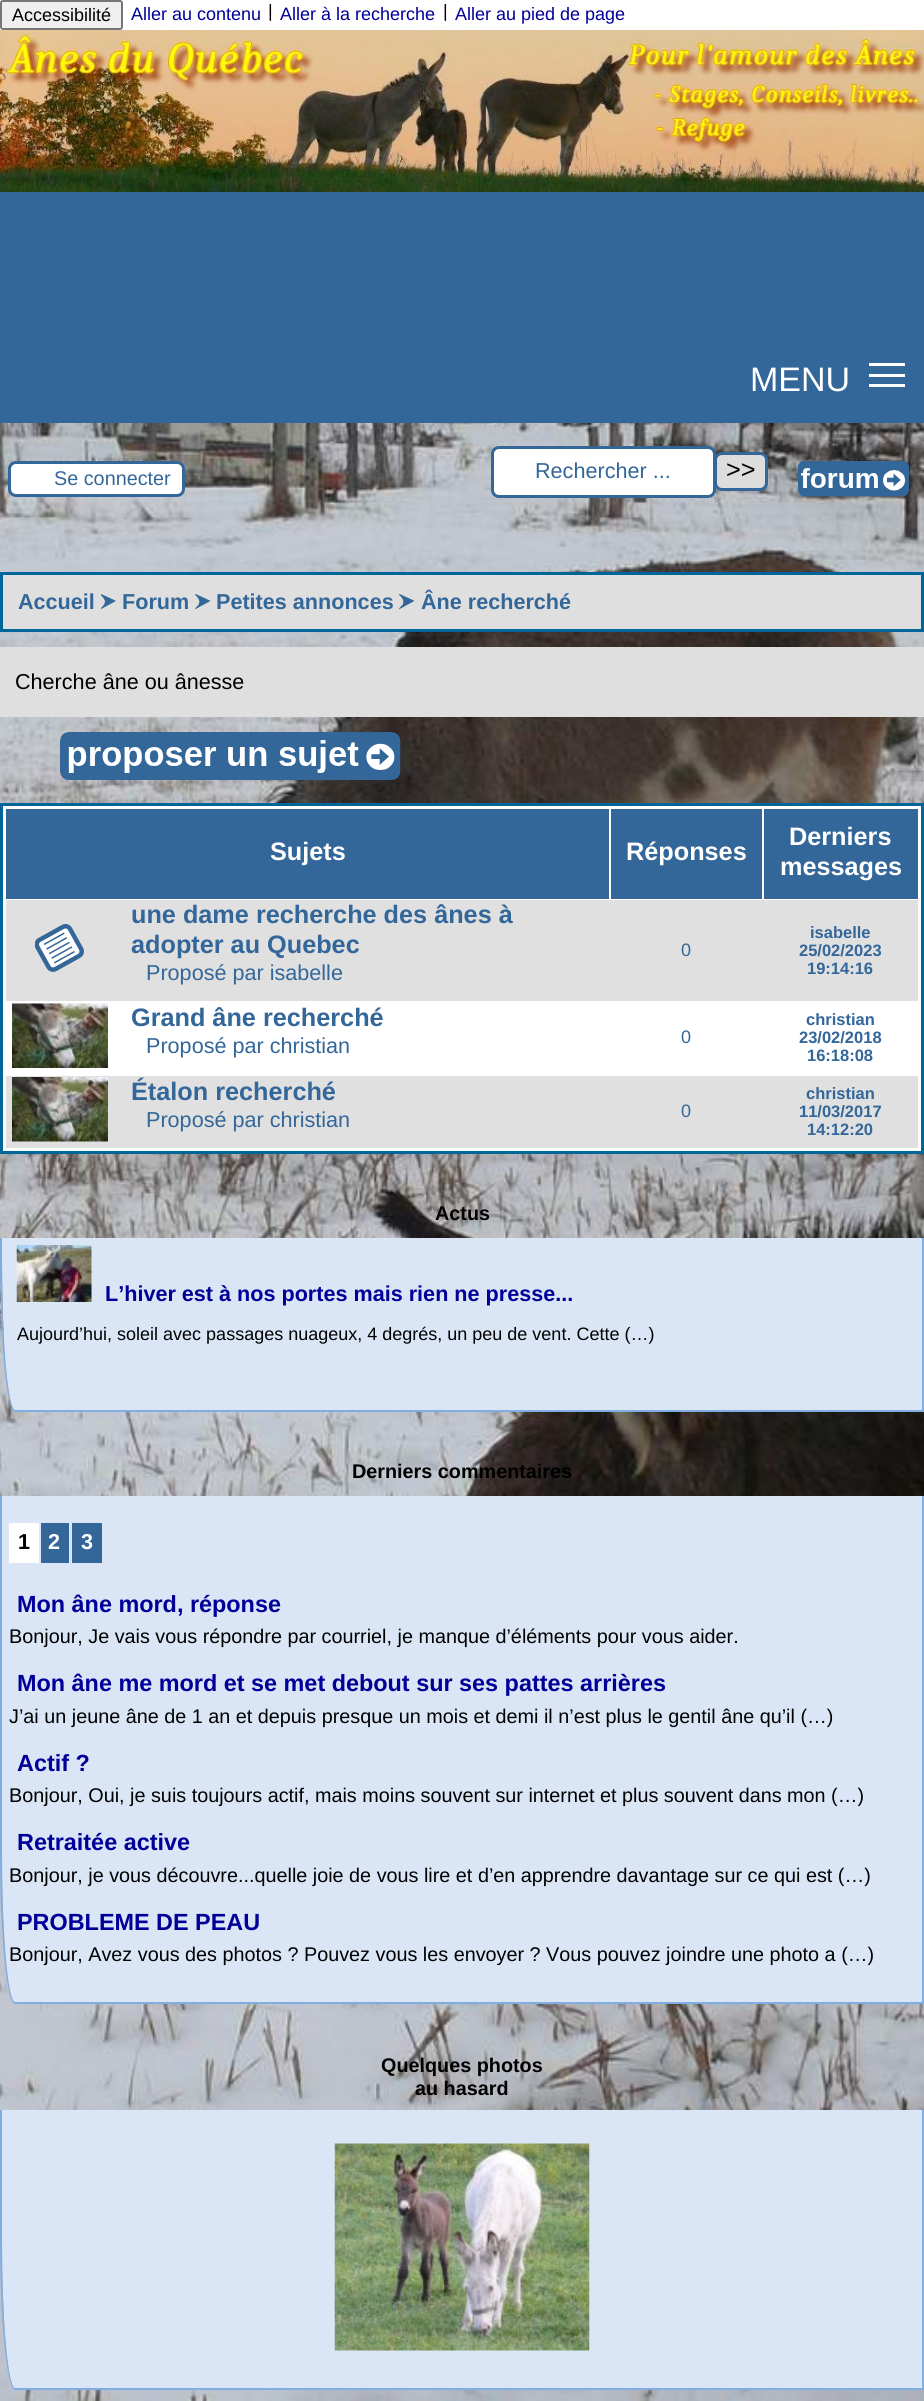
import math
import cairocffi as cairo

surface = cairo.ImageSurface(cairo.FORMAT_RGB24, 924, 2401)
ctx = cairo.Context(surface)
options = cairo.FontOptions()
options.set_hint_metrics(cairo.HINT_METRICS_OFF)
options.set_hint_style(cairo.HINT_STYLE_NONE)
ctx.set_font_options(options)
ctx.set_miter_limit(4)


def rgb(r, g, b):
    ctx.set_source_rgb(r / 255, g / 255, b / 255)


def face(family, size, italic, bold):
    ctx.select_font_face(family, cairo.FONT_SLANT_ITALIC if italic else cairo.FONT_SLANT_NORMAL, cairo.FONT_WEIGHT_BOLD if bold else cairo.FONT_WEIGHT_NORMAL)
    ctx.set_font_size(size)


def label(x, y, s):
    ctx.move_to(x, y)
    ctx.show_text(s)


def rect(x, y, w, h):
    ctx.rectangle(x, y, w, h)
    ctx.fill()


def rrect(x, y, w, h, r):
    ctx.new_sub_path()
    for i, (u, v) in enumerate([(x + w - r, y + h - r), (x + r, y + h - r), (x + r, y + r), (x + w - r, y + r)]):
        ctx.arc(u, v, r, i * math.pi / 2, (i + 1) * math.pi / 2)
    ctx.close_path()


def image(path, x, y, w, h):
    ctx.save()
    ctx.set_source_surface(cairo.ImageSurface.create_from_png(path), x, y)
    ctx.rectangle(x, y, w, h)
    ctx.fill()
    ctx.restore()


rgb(255, 255, 255)
ctx.paint()
image('image0.png', 0, 423, 924, 1978)
rgb(51, 102, 153)
rect(0, 192, 924, 231)
rgb(239, 239, 239)
rrect(1, 1, 121, 28, 2)
ctx.fill_preserve()
rgb(118, 118, 118)
ctx.stroke()
face('Liberation Sans', 18, 0, 0)
rgb(0, 0, 0)
label(12, 21, 'Accessibilité')
rgb(0, 0, 153)
label(131, 20, 'Aller au contenu')
rgb(0, 0, 0)
label(268, 17, '|')
rgb(0, 0, 153)
label(280, 20, 'Aller à la recherche')
rgb(0, 0, 0)
label(443, 17, '|')
rgb(0, 0, 153)
label(455, 20, 'Aller au pied de page')
image('image1.png', 0, 30, 924, 162)
face('Liberation Sans', 34, 0, 0)
rgb(255, 255, 255)
label(750, 391, 'MENU')
rect(869, 374, 36, 3)
rect(869, 363, 36, 3)
rect(869, 384, 36, 3)
rrect(9.5, 462.5, 174, 33, 6.5)
ctx.fill_preserve()
rgb(51, 102, 153)
ctx.set_line_width(3)
ctx.stroke()
face('Liberation Sans', 19.8, 0, 0)
label(54, 485, 'Se connecter')
rgb(255, 255, 255)
rrect(492.5, 447.5, 222, 49, 6.5)
ctx.fill_preserve()
rgb(51, 102, 153)
ctx.stroke()
face('Liberation Sans', 21.6, 0, 0)
label(535, 478, 'Rechercher ...')
rgb(221, 221, 221)
rrect(715.5, 453.5, 51, 36, 6.5)
ctx.fill_preserve()
rgb(51, 102, 153)
ctx.stroke()
face('Liberation Sans', 25.25, 0, 0)
rgb(0, 0, 0)
label(726, 478, '>>')
image('image2.png', 798, 461, 111, 36)
rgb(223, 223, 223)
ctx.rectangle(1.5, 573.5, 921, 57)
ctx.fill_preserve()
rgb(0, 102, 153)
ctx.stroke()
face('Liberation Sans', 21.6, 0, 1)
rgb(51, 102, 153)
label(18, 609, 'Accueil')
image('image3.png', 101, 594, 15, 15)
label(122, 609, 'Forum')
image('image4.png', 195, 594, 15, 15)
label(216, 609, 'Petites annonces')
image('image4.png', 399, 594, 15, 15)
label(421, 609, 'Âne recherché')
rgb(223, 223, 223)
rect(0, 647, 924, 70)
face('Liberation Sans', 21.6, 0, 0)
rgb(0, 0, 0)
label(15, 689, 'Cherche âne ou ânesse')
image('image5.png', 60, 732, 341, 48)
rgb(255, 255, 255)
ctx.rectangle(1.5, 804.5, 921, 348)
ctx.fill_preserve()
rgb(0, 102, 153)
ctx.stroke()
rgb(51, 102, 153)
rect(6, 809, 603, 90)
face('Liberation Sans', 25.25, 0, 1)
rgb(255, 255, 255)
label(270, 860, 'Sujets')
rgb(51, 102, 153)
rect(611, 809, 151, 90)
rgb(255, 255, 255)
label(626, 860, 'Réponses')
rgb(51, 102, 153)
rect(764, 809, 154, 90)
rgb(255, 255, 255)
label(789, 845, 'Derniers')
label(780, 875, 'messages')
rgb(224, 224, 224)
rect(6, 900, 912, 101)
image('image6.png', 35, 924, 49, 48)
rgb(51, 102, 153)
label(131, 923, 'une dame recherche des ânes à')
label(131, 953, 'adopter au Quebec')
face('Liberation Sans', 21.6, 0, 0)
label(146, 980, 'Proposé par isabelle')
face('Liberation Sans', 18, 0, 0)
label(681, 956, '0')
face('Liberation Sans', 16.5, 0, 1)
label(810, 938, 'isabelle')
label(799, 956, '25/02/2023')
label(807, 974, '19:14:16')
image('image7.png', 12, 1003, 96, 65)
face('Liberation Sans', 25.25, 0, 1)
label(131, 1026, 'Grand âne recherché')
face('Liberation Sans', 21.6, 0, 0)
label(146, 1053, 'Proposé par christian')
face('Liberation Sans', 18, 0, 0)
label(681, 1043, '0')
face('Liberation Sans', 16.5, 0, 1)
label(806, 1025, 'christian')
label(799, 1043, '23/02/2018')
label(807, 1061, '16:18:08')
rgb(224, 224, 224)
rect(6, 1076, 912, 72)
image('image8.png', 12, 1077, 96, 65)
face('Liberation Sans', 25.25, 0, 1)
rgb(51, 102, 153)
label(131, 1100, 'Étalon recherché')
face('Liberation Sans', 21.6, 0, 0)
label(146, 1127, 'Proposé par christian')
face('Liberation Sans', 18, 0, 0)
label(681, 1117, '0')
face('Liberation Sans', 16.5, 0, 1)
label(806, 1099, 'christian')
label(799, 1117, '11/03/2017')
label(807, 1135, '14:12:20')
face('Liberation Sans', 19.8, 0, 1)
rgb(0, 0, 0)
label(435, 1220, 'Actus')
rgb(218, 230, 246)
ctx.new_path()
ctx.move_to(2, 1238)
ctx.line_to(922, 1238)
ctx.line_to(922, 1410)
ctx.line_to(15, 1410)
ctx.curve_to(8, 1410, 2, 1344, 2, 1262)
ctx.close_path()
ctx.fill()
rgb(130, 173, 226)
ctx.set_fill_rule(cairo.FILL_RULE_EVEN_ODD)
ctx.new_path()
ctx.move_to(0, 1238)
ctx.line_to(924, 1238)
ctx.line_to(924, 1412)
ctx.line_to(15, 1412)
ctx.curve_to(7, 1412, 0, 1344, 0, 1262)
ctx.close_path()
ctx.move_to(2, 1238)
ctx.line_to(922, 1238)
ctx.line_to(922, 1410)
ctx.line_to(15, 1410)
ctx.curve_to(8, 1410, 2, 1344, 2, 1262)
ctx.close_path()
ctx.fill()
image('image9.png', 16, 1245, 76, 57)
face('Liberation Sans', 21.6, 0, 1)
rgb(0, 0, 153)
label(105, 1301, 'L’hiver est à nos portes mais rien ne presse...')
face('Liberation Sans', 18, 0, 0)
rgb(0, 0, 0)
label(17, 1340, 'Aujourd’hui, soleil avec passages nuageux, 4 degrés, un peu de vent. Cette (…)')
face('Liberation Sans', 19.8, 0, 1)
label(352, 1478, 'Derniers commentaires')
rgb(218, 230, 246)
ctx.set_fill_rule(cairo.FILL_RULE_WINDING)
ctx.new_path()
ctx.move_to(2, 1496)
ctx.line_to(922, 1496)
ctx.line_to(922, 2002)
ctx.line_to(15, 2002)
ctx.curve_to(8, 2002, 2, 1936, 2, 1854)
ctx.close_path()
ctx.fill()
rgb(130, 173, 226)
ctx.set_fill_rule(cairo.FILL_RULE_EVEN_ODD)
ctx.new_path()
ctx.move_to(0, 1496)
ctx.line_to(924, 1496)
ctx.line_to(924, 2004)
ctx.line_to(15, 2004)
ctx.curve_to(7, 2004, 0, 1937, 0, 1854)
ctx.close_path()
ctx.move_to(2, 1496)
ctx.line_to(922, 1496)
ctx.line_to(922, 2002)
ctx.line_to(15, 2002)
ctx.curve_to(8, 2002, 2, 1936, 2, 1854)
ctx.close_path()
ctx.fill()
rgb(255, 255, 255)
rect(9, 1523, 30, 40)
face('Liberation Sans', 21.6, 0, 1)
rgb(0, 0, 0)
label(18, 1549, '1')
rgb(51, 102, 153)
rect(41, 1523, 28, 40)
rgb(255, 255, 255)
label(48, 1549, '2')
rgb(51, 102, 153)
rect(72, 1523, 30, 40)
rgb(255, 255, 255)
label(81, 1549, '3')
face('Liberation Sans', 23.4, 0, 1)
rgb(0, 0, 153)
label(17, 1612, 'Mon âne mord, réponse')
face('Liberation Sans', 19.8, 0, 0)
rgb(0, 0, 0)
label(9, 1643, 'Bonjour, Je vais vous répondre par courriel, je manque d’éléments pour vous aider.')
face('Liberation Sans', 23.4, 0, 1)
rgb(0, 0, 153)
label(17, 1691, 'Mon âne me mord et se met debout sur ses pattes arrières')
face('Liberation Sans', 19.8, 0, 0)
rgb(0, 0, 0)
label(9, 1723, 'J’ai un jeune âne de 1 an et depuis presque un mois et demi il n’est plus le gentil âne qu’il (…)')
face('Liberation Sans', 23.4, 0, 1)
rgb(0, 0, 153)
label(17, 1771, 'Actif ?')
face('Liberation Sans', 19.8, 0, 0)
rgb(0, 0, 0)
label(9, 1802, 'Bonjour, Oui, je suis toujours actif, mais moins souvent sur internet et plus souvent dans mon (…)')
face('Liberation Sans', 23.4, 0, 1)
rgb(0, 0, 153)
label(17, 1850, 'Retraitée active')
face('Liberation Sans', 19.8, 0, 0)
rgb(0, 0, 0)
label(9, 1882, 'Bonjour, je vous découvre...quelle joie de vous lire et d’en apprendre davantage sur ce qui est (…)')
face('Liberation Sans', 23.4, 0, 1)
rgb(0, 0, 153)
label(17, 1930, 'PROBLEME DE PEAU')
face('Liberation Sans', 19.8, 0, 0)
rgb(0, 0, 0)
label(9, 1961, 'Bonjour, Avez vous des photos ? Pouvez vous les envoyer ? Vous pouvez joindre une photo a (…)')
face('Liberation Sans', 19.8, 0, 1)
label(381, 2072, 'Quelques photos')
label(415, 2095, 'au hasard')
rgb(218, 230, 246)
ctx.set_fill_rule(cairo.FILL_RULE_WINDING)
ctx.new_path()
ctx.move_to(2, 2110)
ctx.line_to(922, 2110)
ctx.line_to(922, 2388)
ctx.line_to(15, 2388)
ctx.curve_to(8, 2388, 2, 2322, 2, 2240)
ctx.close_path()
ctx.fill()
rgb(130, 173, 226)
ctx.set_fill_rule(cairo.FILL_RULE_EVEN_ODD)
ctx.new_path()
ctx.move_to(0, 2110)
ctx.line_to(924, 2110)
ctx.line_to(924, 2390)
ctx.line_to(15, 2390)
ctx.curve_to(7, 2390, 0, 2322, 0, 2240)
ctx.close_path()
ctx.move_to(2, 2110)
ctx.line_to(922, 2110)
ctx.line_to(922, 2388)
ctx.line_to(15, 2388)
ctx.curve_to(8, 2388, 2, 2322, 2, 2240)
ctx.close_path()
ctx.fill()
image('image10.png', 334, 2143, 256, 208)
surface.write_to_png('render.png')
